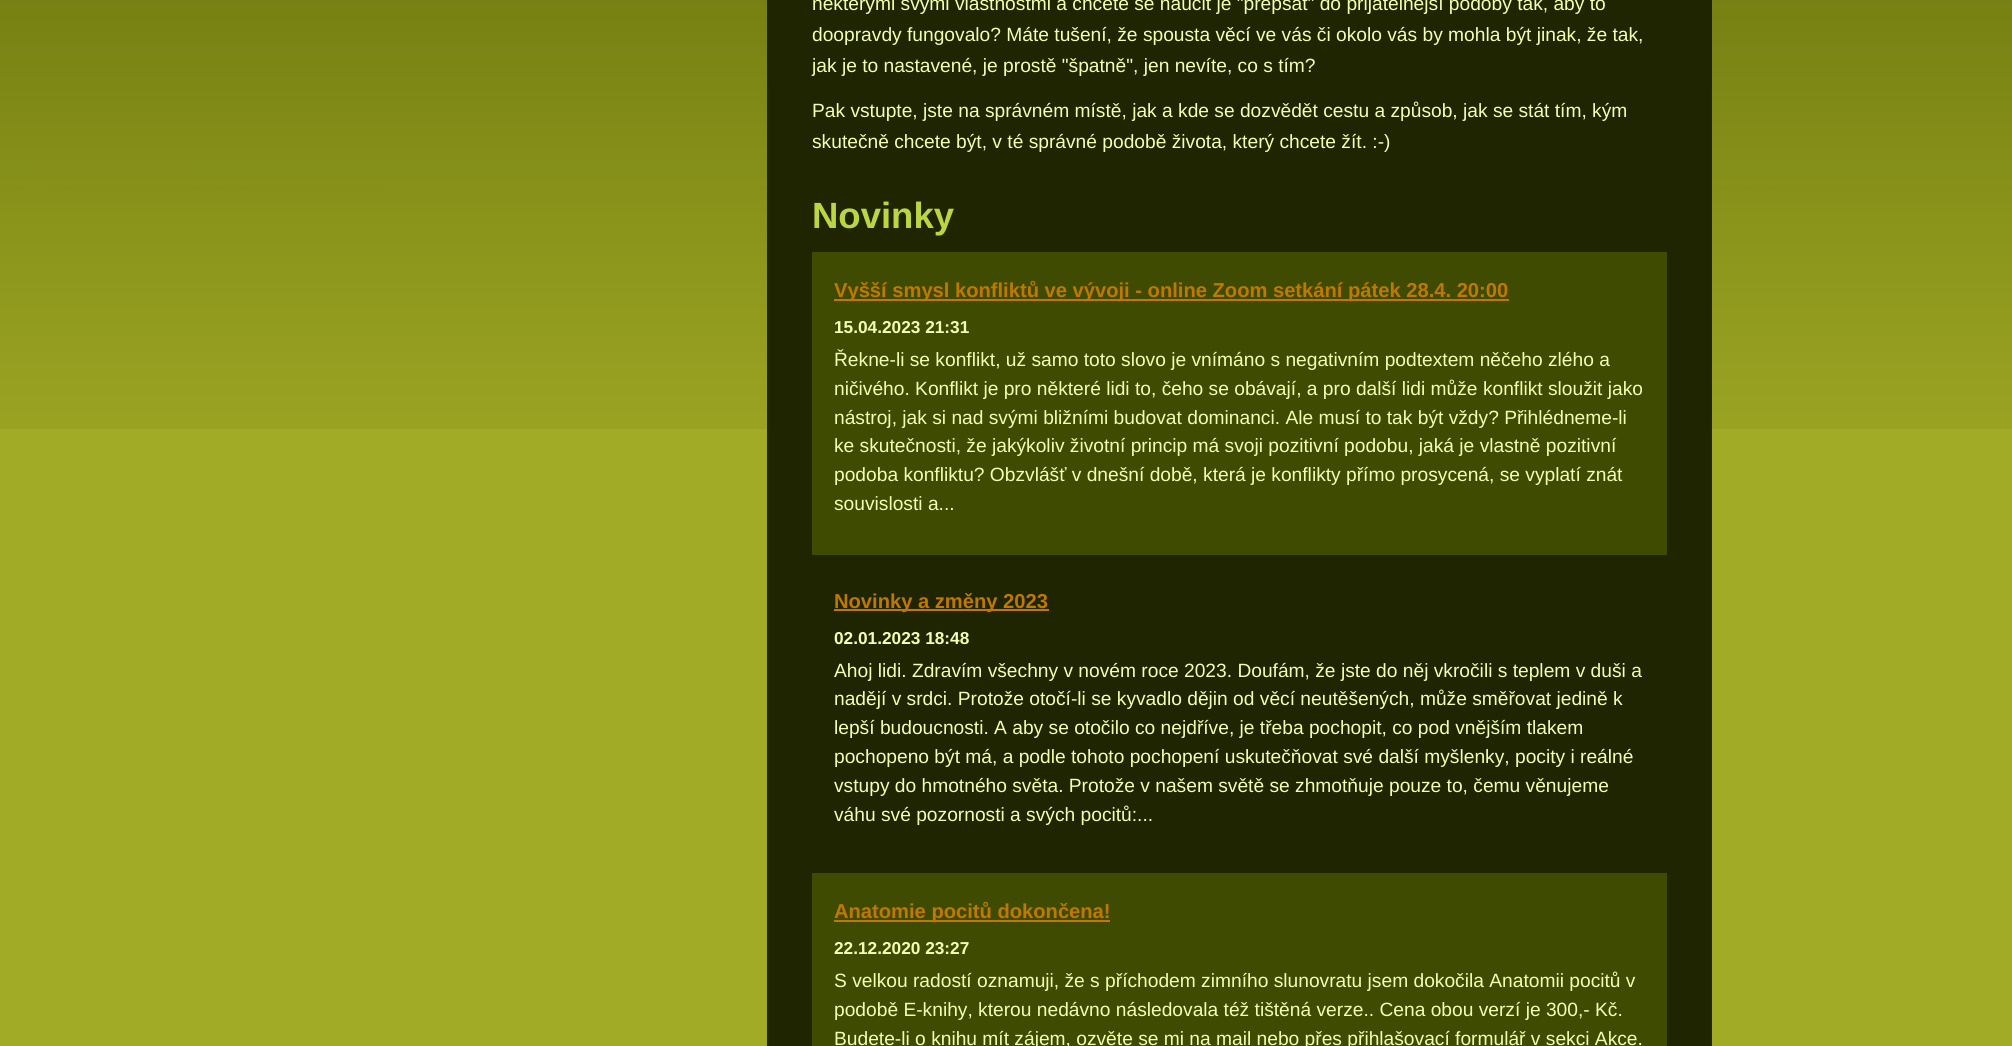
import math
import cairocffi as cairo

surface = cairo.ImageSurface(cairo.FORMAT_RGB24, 2012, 1046)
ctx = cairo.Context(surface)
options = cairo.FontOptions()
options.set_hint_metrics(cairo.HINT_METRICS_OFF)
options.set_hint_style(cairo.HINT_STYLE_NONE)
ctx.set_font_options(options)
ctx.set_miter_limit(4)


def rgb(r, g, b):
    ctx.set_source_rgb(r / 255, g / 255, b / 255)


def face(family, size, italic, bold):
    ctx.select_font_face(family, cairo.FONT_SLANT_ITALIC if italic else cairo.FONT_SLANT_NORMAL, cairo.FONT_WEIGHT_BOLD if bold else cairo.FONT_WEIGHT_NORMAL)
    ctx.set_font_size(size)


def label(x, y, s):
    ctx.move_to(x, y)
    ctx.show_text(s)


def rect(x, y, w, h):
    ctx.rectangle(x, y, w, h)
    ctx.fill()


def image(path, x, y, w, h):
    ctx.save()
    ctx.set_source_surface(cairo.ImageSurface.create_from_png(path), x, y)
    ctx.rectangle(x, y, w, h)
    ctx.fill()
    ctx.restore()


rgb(162, 171, 37)
ctx.paint()
image('image0.png', 0, 0, 2012, 429)
rgb(31, 37, 0)
rect(767, 0, 945, 1046)
face('Liberation Sans', 19.2, 0, 0)
rgb(241, 255, 176)
label(812, 10, 'některými svými vlastnostmi a chcete se naučit je "přepsat" do přijatelnější podoby tak, aby to')
label(812, 41, 'doopravdy fungovalo? Máte tušení, že spousta věcí ve vás či okolo vás by mohla být jinak, že tak,')
label(812, 72, 'jak je to nastavené, je prostě "špatně", jen nevíte, co s tím?')
label(812, 117, 'Pak vstupte, jste na správném místě, jak a kde se dozvědět cestu a způsob, jak se stát tím, kým')
label(812, 148, 'skutečně chcete být, v té správné podobě života, který chcete žít. :-)')
face('Liberation Sans', 36.5, 0, 1)
rgb(188, 213, 67)
label(812, 228, 'Novinky')
rgb(63, 75, 0)
rect(812, 252, 855, 303)
rgb(193, 120, 0)
rect(834, 299, 675, 2)
face('Liberation Sans', 20.15, 0, 1)
label(834, 297, 'Vyšší smysl konfliktů ve vývoji - online Zoom setkání pátek 28.4. 20:00')
face('Liberation Sans', 17.25, 0, 1)
rgb(241, 255, 176)
label(834, 333, '15.04.2023 21:31')
face('Liberation Sans', 19.2, 0, 0)
label(834, 366, 'Řekne-li se konflikt, už samo toto slovo je vnímáno s negativním podtextem něčeho zlého a')
label(834, 395, 'ničivého. Konflikt je pro některé lidi to, čeho se obávají, a pro další lidi může konflikt sloužit jako')
label(834, 424, 'nástroj, jak si nad svými bližními budovat dominanci. Ale musí to tak být vždy? Přihlédneme-li')
label(834, 452, 'ke skutečnosti, že jakýkoliv životní princip má svoji pozitivní podobu, jaká je vlastně pozitivní')
label(834, 481, 'podoba konfliktu? Obzvlášť v dnešní době, která je konflikty přímo prosycená, se vyplatí znát')
label(834, 510, 'souvislosti a...')
rgb(193, 120, 0)
rect(834, 609, 215, 2)
face('Liberation Sans', 20.15, 0, 1)
label(834, 608, 'Novinky a změny 2023')
face('Liberation Sans', 17.25, 0, 1)
rgb(241, 255, 176)
label(834, 644, '02.01.2023 18:48')
face('Liberation Sans', 19.2, 0, 0)
label(834, 677, 'Ahoj lidi. Zdravím všechny v novém roce 2023. Doufám, že jste do něj vkročili s teplem v duši a')
label(834, 705, 'nadějí v srdci. Protože otočí-li se kyvadlo dějin od věcí neutěšených, může směřovat jedině k')
label(834, 734, 'lepší budoucnosti. A aby se otočilo co nejdříve, je třeba pochopit, co pod vnějším tlakem')
label(834, 763, 'pochopeno být má, a podle tohoto pochopení uskutečňovat své další myšlenky, pocity i reálné')
label(834, 792, 'vstupy do hmotného světa. Protože v našem světě se zhmotňuje pouze to, čemu věnujeme')
label(834, 821, 'váhu své pozornosti a svých pocitů:...')
rgb(63, 75, 0)
rect(812, 873, 855, 173)
rgb(193, 120, 0)
rect(834, 920, 276, 2)
face('Liberation Sans', 20.15, 0, 1)
label(834, 918, 'Anatomie pocitů dokončena!')
face('Liberation Sans', 17.25, 0, 1)
rgb(241, 255, 176)
label(834, 954, '22.12.2020 23:27')
face('Liberation Sans', 19.2, 0, 0)
label(834, 987, 'S velkou radostí oznamuji, že s příchodem zimního slunovratu jsem dokočila Anatomii pocitů v')
label(834, 1016, 'podobě E-knihy, kterou nedávno následovala též tištěná verze.. Cena obou verzí je 300,- Kč.')
label(834, 1045, 'Budete-li o knihu mít zájem, ozvěte se mi na mail nebo přes přihlašovací formulář v sekci Akce.')
surface.write_to_png('render.png')
